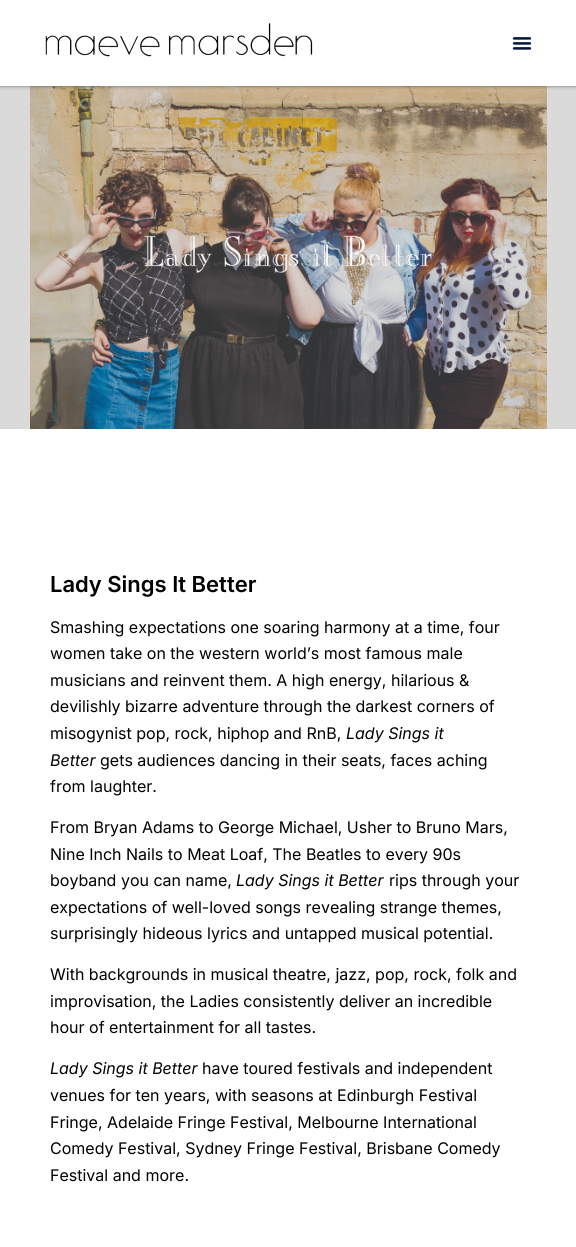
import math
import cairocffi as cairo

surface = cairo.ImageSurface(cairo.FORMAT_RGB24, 576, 1247)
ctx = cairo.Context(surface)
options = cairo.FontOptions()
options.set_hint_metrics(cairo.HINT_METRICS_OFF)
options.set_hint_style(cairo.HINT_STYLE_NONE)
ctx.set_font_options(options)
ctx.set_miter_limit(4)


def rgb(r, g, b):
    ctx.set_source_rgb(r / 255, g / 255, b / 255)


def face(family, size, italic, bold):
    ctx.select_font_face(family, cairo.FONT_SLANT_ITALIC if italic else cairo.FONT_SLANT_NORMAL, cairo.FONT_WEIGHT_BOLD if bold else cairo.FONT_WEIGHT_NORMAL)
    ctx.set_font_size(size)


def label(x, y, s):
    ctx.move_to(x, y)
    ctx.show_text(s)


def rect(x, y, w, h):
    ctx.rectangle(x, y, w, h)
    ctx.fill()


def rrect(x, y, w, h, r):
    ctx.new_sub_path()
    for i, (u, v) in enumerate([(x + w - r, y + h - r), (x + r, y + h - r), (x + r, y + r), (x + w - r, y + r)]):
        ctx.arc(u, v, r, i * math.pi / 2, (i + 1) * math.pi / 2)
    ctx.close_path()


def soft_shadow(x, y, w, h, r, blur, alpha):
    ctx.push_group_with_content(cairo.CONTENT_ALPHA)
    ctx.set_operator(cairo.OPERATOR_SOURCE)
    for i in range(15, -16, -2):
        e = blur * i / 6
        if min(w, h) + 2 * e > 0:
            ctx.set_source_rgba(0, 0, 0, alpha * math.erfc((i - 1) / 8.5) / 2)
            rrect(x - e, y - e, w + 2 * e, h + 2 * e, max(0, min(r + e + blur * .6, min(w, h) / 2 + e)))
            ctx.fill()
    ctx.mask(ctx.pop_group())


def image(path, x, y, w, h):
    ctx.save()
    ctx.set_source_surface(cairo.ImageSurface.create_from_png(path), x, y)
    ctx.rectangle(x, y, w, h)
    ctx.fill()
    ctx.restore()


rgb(255, 255, 255)
ctx.paint()
rgb(218, 218, 218)
rect(0, 86, 576, 343)
image('image2.png', 30, 86, 517, 343)
rgb(0, 0, 0)
soft_shadow(0, 0, 576, 86, 0, 2, 0.5)
rgb(255, 255, 255)
rect(0, 0, 576, 86)
image('image0.png', 45, 23, 268, 34)
image('image1.png', 512, 37, 20, 13)
image('image3.png', 144, 235, 288, 38)
face('Inter SemiBold', 22, 0, 0)
rgb(0, 0, 0)
label(50, 592, 'Lady Sings It Better')
face('Inter', 16, 0, 0)
label(50, 633, 'Smashing expectations one soaring harmony at a time, four')
label(50, 659, 'women take on the western world’s most famous male')
label(50, 686, 'musicians and reinvent them. A high energy, hilarious &')
label(50, 712, 'devilishly bizarre adventure through the darkest corners of')
label(50, 739, 'misogynist pop, rock, hiphop and RnB,')
face('Inter', 16, 1, 0)
label(346, 739, 'Lady Sings it')
label(50, 766, 'Better')
face('Inter', 16, 0, 0)
label(100, 766, 'gets audiences dancing in their seats, faces aching')
label(50, 792, 'from laughter.')
label(50, 833, 'From Bryan Adams to George Michael, Usher to Bruno Mars,')
label(50, 860, 'Nine Inch Nails to Meat Loaf, The Beatles to every 90s')
label(50, 886, 'boyband you can name,')
face('Inter', 16, 1, 0)
label(236, 886, 'Lady Sings it Better')
face('Inter', 16, 0, 0)
label(389, 886, 'rips through your')
label(50, 913, 'expectations of well-loved songs revealing strange themes,')
label(50, 939, 'surprisingly hideous lyrics and untapped musical potential.')
label(50, 980, 'With backgrounds in musical theatre, jazz, pop, rock, folk and')
label(50, 1007, 'improvisation, the Ladies consistently deliver an incredible')
label(50, 1033, 'hour of entertainment for all tastes.')
face('Inter', 16, 1, 0)
label(50, 1074, 'Lady Sings it Better')
face('Inter', 16, 0, 0)
label(202, 1074, 'have toured festivals and independent')
label(50, 1101, 'venues for ten years, with seasons at Edinburgh Festival')
label(50, 1128, 'Fringe, Adelaide Fringe Festival, Melbourne International')
label(50, 1154, 'Comedy Festival, Sydney Fringe Festival, Brisbane Comedy')
label(50, 1181, 'Festival and more.')
surface.write_to_png('render.png')
